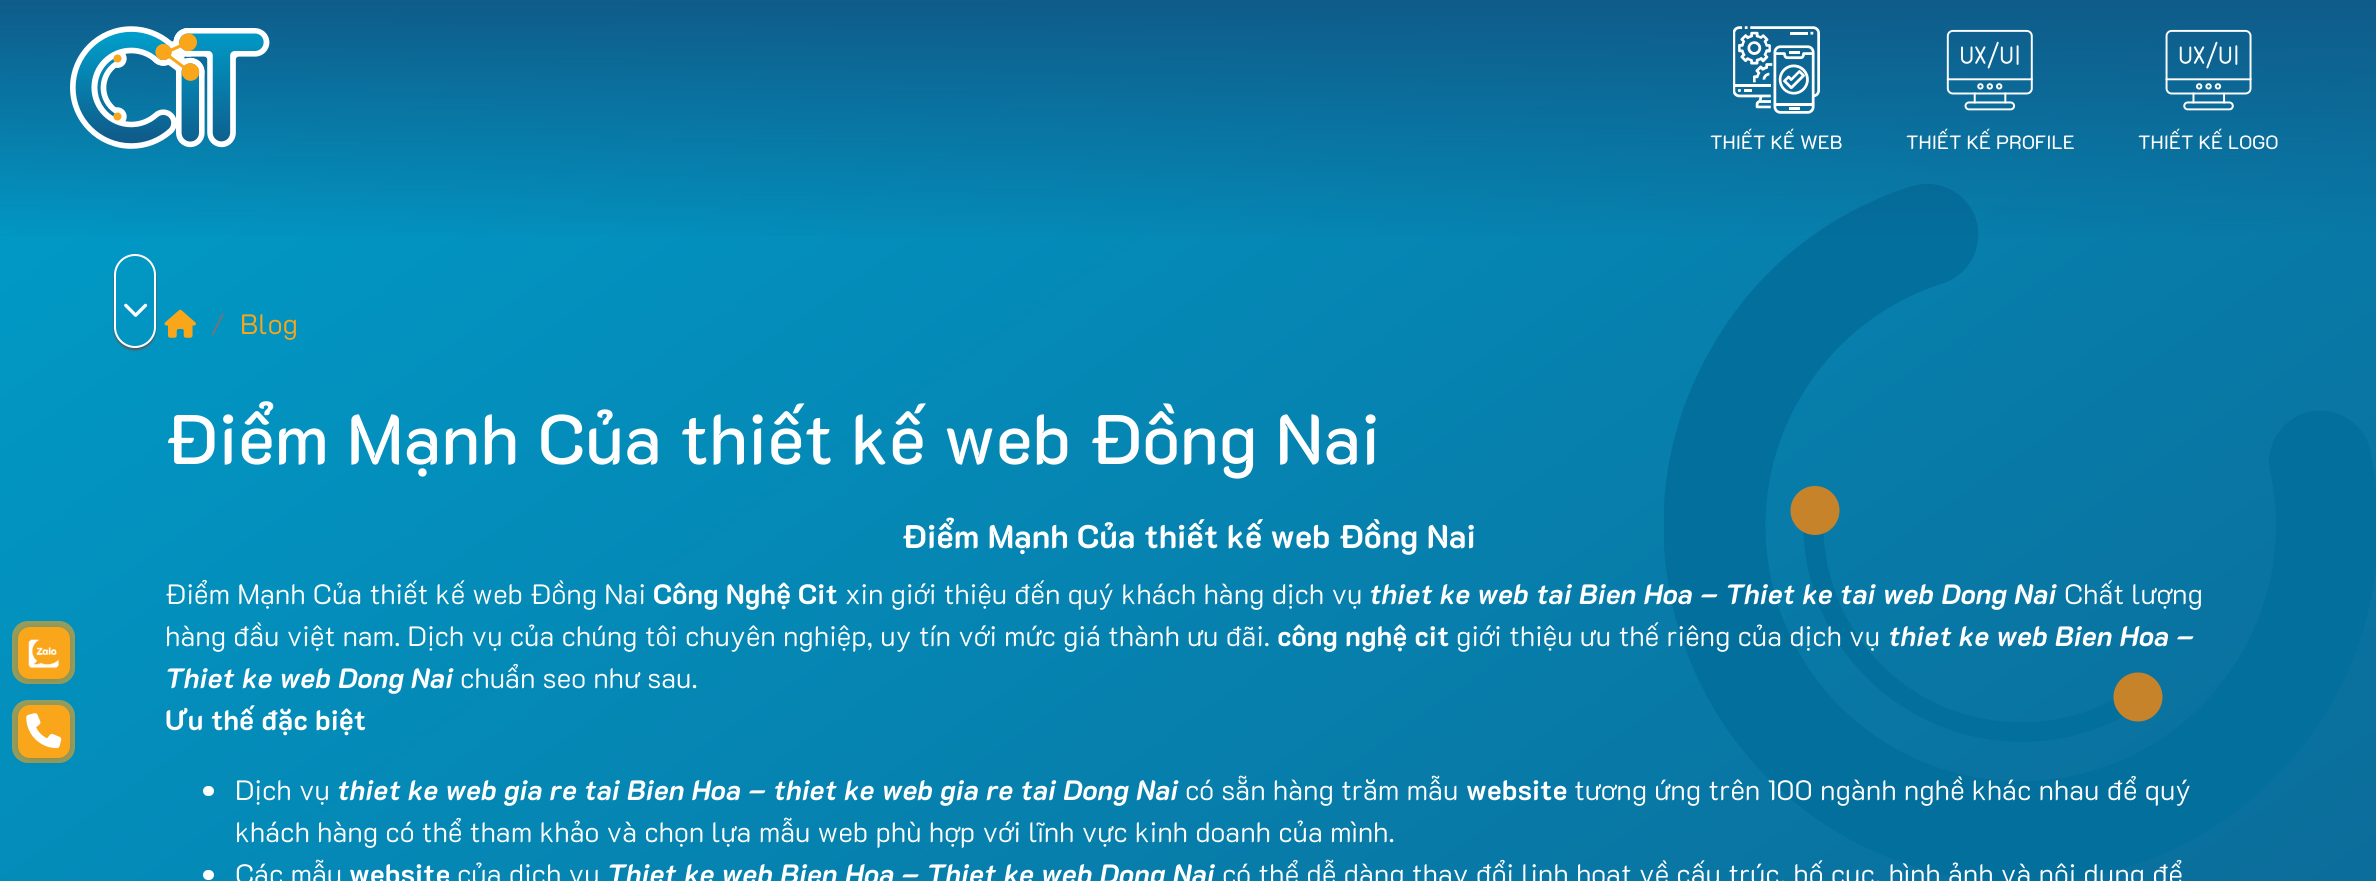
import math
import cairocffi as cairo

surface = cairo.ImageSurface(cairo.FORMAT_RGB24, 2376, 881)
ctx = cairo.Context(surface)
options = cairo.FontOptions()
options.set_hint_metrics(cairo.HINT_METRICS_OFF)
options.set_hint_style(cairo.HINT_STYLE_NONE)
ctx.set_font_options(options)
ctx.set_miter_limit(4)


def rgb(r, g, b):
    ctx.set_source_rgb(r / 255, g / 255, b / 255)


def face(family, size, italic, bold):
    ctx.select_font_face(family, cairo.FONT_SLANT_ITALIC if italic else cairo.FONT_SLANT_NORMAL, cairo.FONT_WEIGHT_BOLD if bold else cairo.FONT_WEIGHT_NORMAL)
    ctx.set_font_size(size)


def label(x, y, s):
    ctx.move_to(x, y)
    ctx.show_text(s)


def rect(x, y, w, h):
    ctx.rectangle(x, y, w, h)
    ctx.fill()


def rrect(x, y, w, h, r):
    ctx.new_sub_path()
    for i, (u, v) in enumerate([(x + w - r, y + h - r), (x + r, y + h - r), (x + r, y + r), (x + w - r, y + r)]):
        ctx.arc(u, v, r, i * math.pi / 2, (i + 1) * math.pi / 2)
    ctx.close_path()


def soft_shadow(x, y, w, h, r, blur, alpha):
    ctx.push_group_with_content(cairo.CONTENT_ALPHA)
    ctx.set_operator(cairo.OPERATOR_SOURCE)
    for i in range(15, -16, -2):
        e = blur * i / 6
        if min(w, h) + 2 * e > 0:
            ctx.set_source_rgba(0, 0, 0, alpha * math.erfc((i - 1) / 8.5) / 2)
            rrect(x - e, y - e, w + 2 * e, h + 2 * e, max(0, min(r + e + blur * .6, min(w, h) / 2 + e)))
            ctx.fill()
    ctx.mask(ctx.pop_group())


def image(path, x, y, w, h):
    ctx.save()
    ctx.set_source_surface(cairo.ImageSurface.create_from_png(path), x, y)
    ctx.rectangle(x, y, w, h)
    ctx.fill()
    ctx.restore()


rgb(255, 255, 255)
ctx.paint()
gradient = cairo.LinearGradient(2003, 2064, 374, -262)
gradient.add_color_stop_rgba(0, 0.059, 0.357, 0.537, 1)
gradient.add_color_stop_rgba(1, 0, 0.616, 0.792, 1)
ctx.set_source(gradient)
rect(0, 1, 2376, 880)
rgb(151, 157, 91)
rrect(12, 621, 63, 63, 16)
ctx.fill()
rgb(0, 0, 0)
soft_shadow(18, 628, 52, 53, 12, 4.5, 0.1)
rgb(250, 166, 26)
rrect(18, 627, 52, 52, 12)
ctx.fill()
image('image0.png', 28, 639, 32, 30)
rgb(151, 157, 91)
rrect(12, 700, 63, 63, 16)
ctx.fill()
rgb(0, 0, 0)
soft_shadow(18, 707, 52, 53, 12, 4.5, 0.1)
rgb(250, 166, 26)
rrect(18, 705, 52, 53, 12)
ctx.fill()
image('image1.png', 26, 713, 36, 36)
image('image7.png', 1664, 184, 712, 697)
gradient = cairo.LinearGradient(1188, 0, 1188, 245)
gradient.add_color_stop_rgba(0, 0.059, 0.357, 0.537, 1)
gradient.add_color_stop_rgba(1, 0.059, 0.357, 0.537, 0)
ctx.set_source(gradient)
rect(0, 0, 2376, 236)
image('image2.png', 70, 26, 200, 123)
image('image3.png', 1733, 26, 87, 88)
face('K2D', 19.25, 0, 0)
rgb(255, 255, 255)
label(1710, 149, 'THIẾT KẾ WEB')
image('image4.png', 1946, 29, 87, 82)
label(1906, 149, 'THIẾT KẾ PROFILE')
image('image5.png', 2165, 29, 87, 82)
label(2138, 149, 'THIẾT KẾ LOGO')
image('image6.png', 124, 303, 24, 14)
ctx.save()
ctx.set_fill_rule(cairo.FILL_RULE_EVEN_ODD)
ctx.new_path()
ctx.move_to(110, 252)
ctx.line_to(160, 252)
ctx.line_to(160, 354)
ctx.line_to(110, 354)
ctx.close_path()
ctx.move_to(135, 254)
ctx.curve_to(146.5, 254, 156, 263.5, 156, 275)
ctx.line_to(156, 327)
ctx.curve_to(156, 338.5, 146.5, 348, 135, 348)
ctx.curve_to(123.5, 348, 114, 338.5, 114, 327)
ctx.line_to(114, 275)
ctx.curve_to(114, 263.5, 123.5, 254, 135, 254)
ctx.close_path()
ctx.clip()
rgb(85, 85, 85)
soft_shadow(114, 256, 42, 94, 21, 1, 1)
ctx.restore()
rrect(115, 255, 40, 92, 20)
ctx.stroke()
image('image8.png', 164, 309, 32, 29)
face('K2D Light', 28, 0, 0)
rgb(108, 117, 125)
label(210, 334, '/')
rgb(250, 166, 26)
label(240, 334, 'Blog')
face('K2D Medium', 70, 0, 0)
rgb(255, 255, 255)
label(165, 464, 'Điểm Mạnh Của thiết kế web Đồng Nai')
face('K2D', 32.7, 0, 1)
label(902, 548, 'Điểm Mạnh Của thiết kế web Đồng Nai')
face('K2D Light', 28, 0, 0)
label(165, 604, 'Điểm Mạnh Của thiết kế web Đồng Nai')
face('K2D', 28, 0, 1)
label(653, 604, 'Công Nghệ Cit')
face('K2D Light', 28, 0, 0)
label(845, 604, 'xin giới thiệu đến quý khách hàng dịch vụ')
face('K2D', 28, 1, 1)
label(1369, 604, 'thiet ke web tai Bien Hoa – Thiet ke tai web Dong Nai')
face('K2D Light', 28, 0, 0)
label(2064, 604, 'Chất lượng')
label(165, 646, 'hàng đầu việt nam. Dịch vụ của chúng tôi chuyên nghiệp, uy tín với mức giá thành ưu đãi.')
face('K2D', 28, 0, 1)
label(1277, 646, 'công nghệ cit')
face('K2D Light', 28, 0, 0)
label(1456, 646, 'giới thiệu ưu thế riêng của dịch vụ')
face('K2D', 28, 1, 1)
label(1888, 646, 'thiet ke web Bien Hoa –')
label(165, 688, 'Thiet ke web Dong Nai')
face('K2D Light', 28, 0, 0)
label(460, 688, 'chuẩn seo như sau.')
face('K2D', 28, 0, 1)
label(165, 730, 'Ưu thế đặc biệt')
rrect(203, 786, 11, 10, 5)
ctx.fill()
face('K2D Light', 28, 0, 0)
label(235, 800, 'Dịch vụ')
face('K2D', 28, 1, 1)
label(337, 800, 'thiet ke web gia re tai Bien Hoa – thiet ke web gia re tai Dong Nai')
face('K2D Light', 28, 0, 0)
label(1185, 800, 'có sẵn hàng trăm mẫu')
face('K2D', 28, 0, 1)
label(1466, 800, 'website')
face('K2D Light', 28, 0, 0)
label(1574, 800, 'tương ứng trên 100 ngành nghề khác nhau để quý')
label(235, 842, 'khách hàng có thể tham khảo và chọn lựa mẫu web phù hợp với lĩnh vực kinh doanh của mình.')
rrect(203, 870, 11, 10, 5)
ctx.fill()
label(235, 884, 'Các mẫu')
face('K2D', 28, 0, 1)
label(349, 884, 'website')
face('K2D Light', 28, 0, 0)
label(457, 884, 'của dịch vụ')
face('K2D', 28, 1, 1)
label(607, 884, 'Thiet ke web Bien Hoa – Thiet ke web Dong Nai')
face('K2D Light', 28, 0, 0)
label(1222, 884, 'có thể dễ dàng thay đổi linh hoạt về cấu trúc, bố cục, hình ảnh và nội dung để')
surface.write_to_png('render.png')
